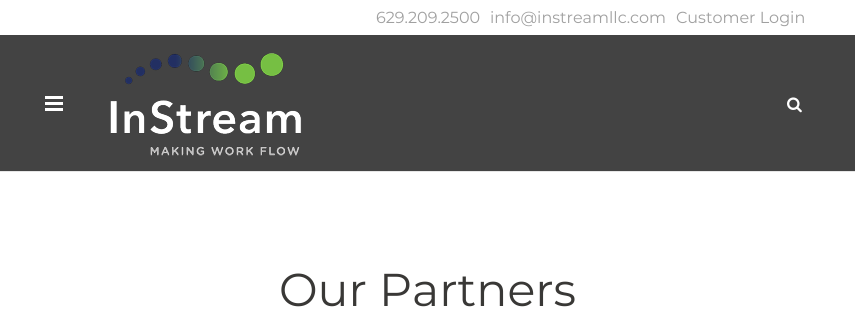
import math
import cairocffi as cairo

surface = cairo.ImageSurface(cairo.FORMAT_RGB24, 855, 334)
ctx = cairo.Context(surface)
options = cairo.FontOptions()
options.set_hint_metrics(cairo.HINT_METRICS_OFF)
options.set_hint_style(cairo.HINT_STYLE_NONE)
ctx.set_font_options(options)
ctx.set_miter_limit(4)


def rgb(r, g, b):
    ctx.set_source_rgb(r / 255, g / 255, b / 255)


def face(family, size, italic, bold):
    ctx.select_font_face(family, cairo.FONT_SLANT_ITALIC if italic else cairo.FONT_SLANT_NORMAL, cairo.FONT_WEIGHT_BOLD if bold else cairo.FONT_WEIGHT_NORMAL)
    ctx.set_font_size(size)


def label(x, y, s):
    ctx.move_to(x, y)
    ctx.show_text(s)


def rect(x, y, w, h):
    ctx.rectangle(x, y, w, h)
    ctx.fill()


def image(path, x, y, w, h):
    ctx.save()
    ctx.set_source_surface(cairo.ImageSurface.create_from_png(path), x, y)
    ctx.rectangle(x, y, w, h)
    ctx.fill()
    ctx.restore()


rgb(255, 255, 255)
ctx.paint()
rgb(67, 67, 67)
rect(0, 35, 855, 136)
rgb(230, 230, 230)
rect(0, 171, 855, 1)
face('Montserrat Thin', 16, 0, 0)
rgb(160, 160, 160)
label(376, 23, '629.209.2500')
label(490, 23, 'info@instreamllc.com')
label(676, 23, 'Customer Login')
rgb(255, 255, 255)
rect(45, 96, 18, 3)
rect(45, 102, 18, 3)
rect(45, 108, 18, 3)
image('image0.png', 110, 53, 192, 103)
image('image1.png', 787, 97, 15, 16)
face('Montserrat Thin', 46, 0, 0)
rgb(57, 56, 54)
label(279, 306, 'Our Partners')
surface.write_to_png('render.png')
